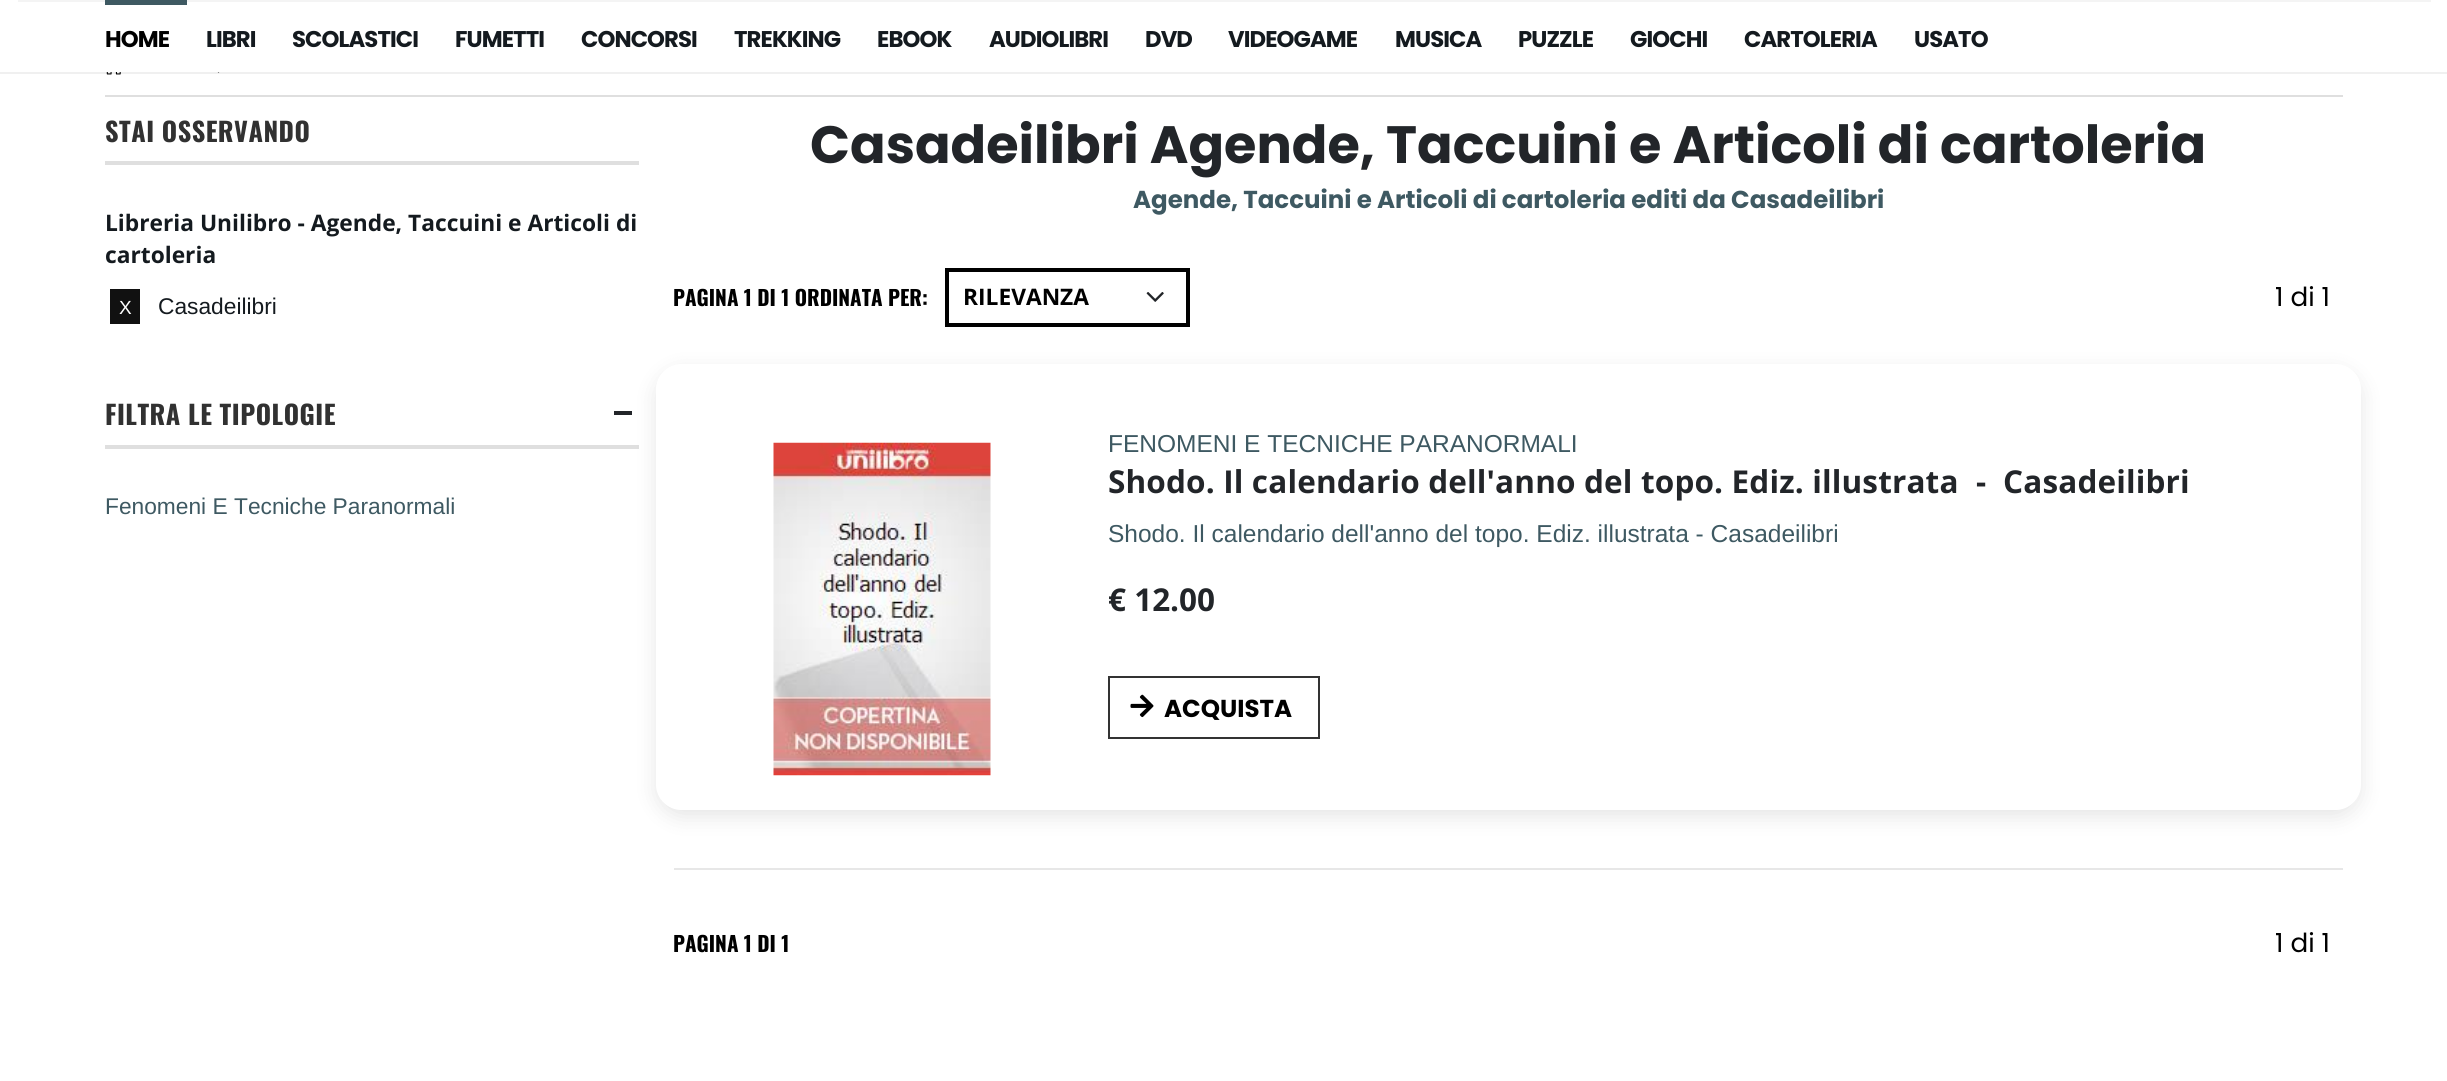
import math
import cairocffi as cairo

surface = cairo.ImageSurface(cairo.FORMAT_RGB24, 2447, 1081)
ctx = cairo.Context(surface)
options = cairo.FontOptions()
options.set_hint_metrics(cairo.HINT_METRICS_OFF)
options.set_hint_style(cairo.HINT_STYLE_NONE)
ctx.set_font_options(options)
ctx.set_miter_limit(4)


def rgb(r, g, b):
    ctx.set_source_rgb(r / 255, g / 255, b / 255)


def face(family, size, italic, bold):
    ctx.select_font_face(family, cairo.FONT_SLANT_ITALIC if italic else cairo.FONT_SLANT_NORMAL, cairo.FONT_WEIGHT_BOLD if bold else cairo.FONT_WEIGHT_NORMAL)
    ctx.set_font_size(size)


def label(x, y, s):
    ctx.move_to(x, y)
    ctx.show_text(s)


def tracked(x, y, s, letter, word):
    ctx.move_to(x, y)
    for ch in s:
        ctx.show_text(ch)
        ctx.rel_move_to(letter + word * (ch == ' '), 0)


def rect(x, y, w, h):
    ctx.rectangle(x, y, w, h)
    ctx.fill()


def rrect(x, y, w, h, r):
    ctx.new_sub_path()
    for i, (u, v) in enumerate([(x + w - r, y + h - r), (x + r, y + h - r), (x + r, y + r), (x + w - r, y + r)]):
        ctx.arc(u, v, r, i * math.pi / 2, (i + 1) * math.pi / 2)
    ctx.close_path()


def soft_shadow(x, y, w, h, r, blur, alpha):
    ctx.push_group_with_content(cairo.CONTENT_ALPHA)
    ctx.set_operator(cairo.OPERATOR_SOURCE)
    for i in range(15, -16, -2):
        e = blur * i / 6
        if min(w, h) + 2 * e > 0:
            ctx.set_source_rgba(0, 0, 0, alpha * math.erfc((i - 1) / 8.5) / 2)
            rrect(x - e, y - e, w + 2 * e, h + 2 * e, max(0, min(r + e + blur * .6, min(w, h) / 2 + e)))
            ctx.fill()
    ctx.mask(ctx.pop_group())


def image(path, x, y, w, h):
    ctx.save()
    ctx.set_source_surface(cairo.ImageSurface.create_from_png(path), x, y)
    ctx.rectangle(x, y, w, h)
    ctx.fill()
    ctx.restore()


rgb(255, 255, 255)
ctx.paint()
image('image0.png', 106, 72, 15, 3)
image('image1.png', 217, 72, 3, 1)
ctx.set_source_rgba(0, 0, 0, 0.06)
rect(0, 72, 2447, 2)
rgb(244, 244, 244)
rect(18, 0, 2413, 2)
rgb(62, 89, 98)
rect(105, 0, 82, 5)
face('Poppins', 22.75, 0, 1)
rgb(0, 0, 0)
tracked(105, 47, 'HOME', -0.9, 0)
rgb(20, 26, 31)
tracked(206, 47, 'LIBRI', -0.9, 0)
tracked(292, 47, 'SCOLASTICI', -0.9, 0)
tracked(455, 47, 'FUMETTI', -0.9, 0)
tracked(581, 47, 'CONCORSI', -0.9, 0)
tracked(734, 47, 'TREKKING', -0.9, 0)
tracked(877, 47, 'EBOOK', -0.9, 0)
tracked(989, 47, 'AUDIOLIBRI', -0.9, 0)
tracked(1145, 47, 'DVD', -0.9, 0)
tracked(1228, 47, 'VIDEOGAME', -0.9, 0)
tracked(1395, 47, 'MUSICA', -0.9, 0)
tracked(1518, 47, 'PUZZLE', -0.9, 0)
tracked(1630, 47, 'GIOCHI', -0.9, 0)
tracked(1744, 47, 'CARTOLERIA', -0.9, 0)
tracked(1914, 47, 'USATO', -0.9, 0)
rgb(223, 223, 223)
rect(105, 95, 2238, 2)
rect(105, 161, 534, 4)
face('Oswald', 26.25, 0, 1)
rgb(49, 49, 49)
tracked(105, 142, 'STAI OSSERVANDO', 0.5, 0)
face('Open Sans', 22.75, 0, 1)
rgb(20, 26, 31)
label(105, 231, 'Libreria Unilibro - Agende, Taccuini e Articoli di')
label(105, 263, 'cartoleria')
rgb(17, 17, 17)
rect(110, 289, 30, 35)
face('Liberation Sans', 19, 0, 0)
rgb(255, 255, 255)
label(119, 314, 'X')
face('Liberation Sans', 22.75, 0, 0)
rgb(20, 26, 31)
label(158, 314, 'Casadeilibri')
rgb(223, 223, 223)
rect(105, 445, 534, 4)
face('Oswald', 26.25, 0, 1)
rgb(49, 49, 49)
tracked(105, 425, 'FILTRA LE TIPOLOGIE', 0.5, 0)
rgb(34, 37, 41)
rect(614, 411, 18, 4)
face('Liberation Sans', 22.75, 0, 0)
rgb(62, 89, 98)
label(105, 514, 'Fenomeni E Tecniche Paranormali')
face('Poppins', 52.5, 0, 1)
rgb(34, 37, 41)
label(810, 163, 'Casadeilibri Agende, Taccuini e Articoli di cartoleria')
face('Poppins', 24.5, 0, 1)
rgb(62, 89, 98)
label(1133, 208, 'Agende, Taccuini e Articoli di cartoleria editi da Casadeilibri')
face('Oswald', 21, 0, 1)
rgb(0, 0, 0)
label(673, 306, 'PAGINA 1 DI 1 ORDINATA PER:')
image('image2.png', 1146, 292, 18, 10)
ctx.rectangle(947, 270, 241, 55)
ctx.set_line_width(4)
ctx.stroke()
face('Open Sans', 22.75, 0, 1)
label(963, 305, 'RILEVANZA')
face('Poppins', 26.25, 0, 0)
label(2275, 306, '1 di 1')
ctx.save()
ctx.set_fill_rule(cairo.FILL_RULE_EVEN_ODD)
ctx.new_path()
ctx.move_to(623, 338)
ctx.line_to(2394, 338)
ctx.line_to(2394, 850)
ctx.line_to(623, 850)
ctx.close_path()
ctx.move_to(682, 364)
ctx.line_to(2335, 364)
ctx.curve_to(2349.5, 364, 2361, 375.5, 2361, 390)
ctx.line_to(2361, 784)
ctx.curve_to(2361, 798.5, 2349.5, 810, 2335, 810)
ctx.line_to(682, 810)
ctx.curve_to(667.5, 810, 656, 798.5, 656, 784)
ctx.line_to(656, 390)
ctx.curve_to(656, 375.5, 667.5, 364, 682, 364)
ctx.close_path()
ctx.clip()
rgb(0, 0, 0)
soft_shadow(656, 371, 1705, 446, 26, 10.5, 0.1)
ctx.restore()
image('image3.png', 773, 442, 218, 334)
face('Liberation Sans', 24.5, 0, 0)
rgb(62, 89, 98)
label(1108, 452, 'FENOMENI E TECNICHE PARANORMALI')
face('Open Sans', 31.5, 0, 1)
rgb(34, 37, 41)
tracked(1108, 493, 'Shodo. Il calendario dell\'anno del topo. Ediz. illustrata', 0.15, 0)
tracked(1976, 493, '-', 0.15, 0)
tracked(2003, 493, 'Casadeilibri', 0.15, 0)
face('Liberation Sans', 24.5, 0, 0)
rgb(62, 89, 98)
label(1108, 542, 'Shodo. Il calendario dell\'anno del topo. Ediz. illustrata - Casadeilibri')
face('Open Sans', 31.5, 0, 1)
rgb(34, 37, 41)
label(1108, 611, '€ 12.00')
ctx.rectangle(1109, 677, 210, 61)
rgb(51, 51, 51)
ctx.set_line_width(2)
ctx.stroke()
image('image4.png', 1130, 694, 24, 24)
face('Poppins', 24.5, 0, 1)
rgb(0, 0, 0)
label(1164, 717, 'ACQUISTA')
rgb(231, 231, 231)
rect(674, 868, 1669, 2)
face('Oswald', 21, 0, 1)
rgb(0, 0, 0)
label(673, 952, 'PAGINA 1 DI 1')
face('Poppins', 26.25, 0, 0)
label(2275, 952, '1 di 1')
surface.write_to_png('render.png')
